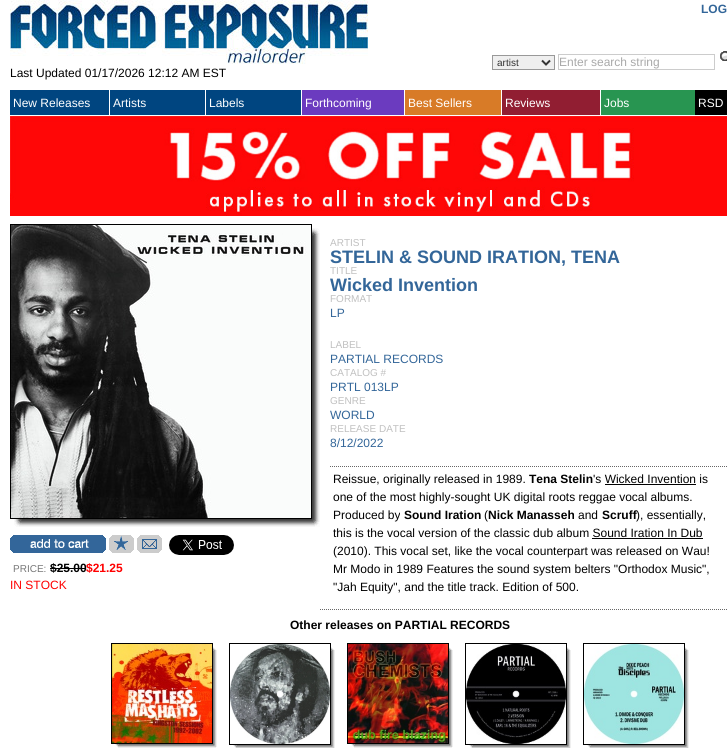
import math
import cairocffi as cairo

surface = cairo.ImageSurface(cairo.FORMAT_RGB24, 727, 748)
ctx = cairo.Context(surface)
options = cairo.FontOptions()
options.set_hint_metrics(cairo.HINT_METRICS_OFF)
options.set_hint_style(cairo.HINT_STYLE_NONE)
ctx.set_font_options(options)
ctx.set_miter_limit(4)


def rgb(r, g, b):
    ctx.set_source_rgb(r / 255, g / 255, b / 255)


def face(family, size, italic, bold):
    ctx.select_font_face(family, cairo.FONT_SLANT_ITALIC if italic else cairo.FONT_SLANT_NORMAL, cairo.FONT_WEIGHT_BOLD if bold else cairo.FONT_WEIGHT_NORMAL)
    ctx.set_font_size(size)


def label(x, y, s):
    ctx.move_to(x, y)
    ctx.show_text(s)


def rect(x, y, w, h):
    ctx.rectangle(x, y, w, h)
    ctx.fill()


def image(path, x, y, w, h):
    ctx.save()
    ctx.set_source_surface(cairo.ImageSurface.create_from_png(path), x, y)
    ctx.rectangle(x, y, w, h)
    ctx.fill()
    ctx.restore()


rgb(255, 255, 255)
ctx.paint()
face('Liberation Sans', 12, 0, 1)
rgb(51, 102, 153)
label(701, 13, 'LOG')
image('image0.png', 720, 51, 7, 10)
rgb(239, 239, 239)
ctx.rectangle(492.5, 55.5, 62, 14)
ctx.fill_preserve()
rgb(153, 153, 153)
ctx.set_line_width(1)
ctx.stroke()
ctx.new_path()
ctx.move_to(542, 60.5)
ctx.line_to(546, 64.5)
ctx.line_to(550, 60.5)
rgb(51, 51, 51)
ctx.set_line_width(2)
ctx.stroke()
face('Liberation Sans', 10, 0, 0)
label(497, 66, 'artist')
ctx.rectangle(558.5, 54.5, 156, 15)
rgb(204, 204, 204)
ctx.set_line_width(1)
ctx.stroke()
face('Liberation Sans', 12, 0, 0)
rgb(169, 169, 169)
label(559, 66, 'Enter search string')
image('image1.png', 10, 0, 358, 64)
rgb(0, 0, 0)
label(10, 77, 'Last Updated 01/17/2026 12:12 AM EST')
rgb(0, 69, 128)
rect(10, 90, 99, 25)
rgb(255, 255, 255)
label(13, 107, 'New Releases')
rgb(0, 69, 128)
rect(110, 90, 95, 25)
rgb(255, 255, 255)
label(113, 107, 'Artists')
rgb(0, 69, 128)
rect(206, 90, 95, 25)
rgb(255, 255, 255)
label(209, 107, 'Labels')
rgb(107, 59, 191)
rect(302, 90, 102, 25)
rgb(255, 255, 255)
label(305, 107, 'Forthcoming')
rgb(216, 123, 39)
rect(405, 90, 96, 25)
rgb(255, 255, 255)
label(408, 107, 'Best Sellers')
rgb(145, 30, 50)
rect(502, 90, 98, 25)
rgb(255, 255, 255)
label(505, 107, 'Reviews')
rgb(40, 149, 81)
rect(601, 90, 94, 25)
rgb(255, 255, 255)
label(604, 107, 'Jobs')
rgb(0, 0, 0)
rect(695, 90, 32, 25)
rgb(255, 255, 255)
label(698, 107, 'RSD')
image('image2.png', 10, 116, 717, 100)
image('image3.png', 22, 236, 298, 291)
image('image4.png', 10, 519, 12, 8)
image('image5.png', 312, 224, 8, 12)
ctx.rectangle(10.5, 224.5, 301, 294)
rgb(0, 0, 0)
ctx.stroke()
image('image6.png', 11, 225, 300, 293)
image('image7.png', 10, 535, 96, 18)
image('image8.png', 109, 535, 25, 18)
image('image9.png', 137, 535, 25, 18)
image('image10.png', 169, 535, 65, 20)
face('Liberation Sans', 10, 0, 0)
rgb(119, 119, 119)
label(13, 572, 'PRICE:')
face('Liberation Sans', 12, 0, 1)
rgb(0, 0, 0)
label(50, 572, '$25.00')
rect(50, 568, 36, 1)
rgb(255, 0, 0)
label(86, 572, '$21.25')
face('Liberation Sans', 12, 0, 0)
label(10, 589, 'IN STOCK')
ctx.new_path()
ctx.move_to(320, 609.5)
ctx.line_to(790, 609.5)
rgb(102, 102, 102)
ctx.set_dash([1, 1])
ctx.stroke()
face('Liberation Sans', 10, 0, 0)
rgb(192, 192, 192)
label(330, 246, 'ARTIST')
face('Liberation Sans', 18, 0, 1)
rgb(51, 102, 153)
label(330, 263, 'STELIN & SOUND IRATION, TENA')
face('Liberation Sans', 10, 0, 0)
rgb(192, 192, 192)
label(330, 274, 'TITLE')
face('Liberation Sans', 18, 0, 1)
rgb(51, 102, 153)
label(330, 291, 'Wicked Invention')
face('Liberation Sans', 10, 0, 0)
rgb(192, 192, 192)
label(330, 302, 'FORMAT')
face('Liberation Sans', 12, 0, 0)
rgb(51, 102, 153)
label(330, 317, 'LP')
face('Liberation Sans', 10, 0, 0)
rgb(192, 192, 192)
label(330, 348, 'LABEL')
face('Liberation Sans', 12, 0, 0)
rgb(51, 102, 153)
label(330, 363, 'PARTIAL RECORDS')
face('Liberation Sans', 10, 0, 0)
rgb(192, 192, 192)
label(330, 376, 'CATALOG #')
face('Liberation Sans', 12, 0, 0)
rgb(51, 102, 153)
label(330, 391, 'PRTL 013LP')
face('Liberation Sans', 10, 0, 0)
rgb(192, 192, 192)
label(330, 404, 'GENRE')
face('Liberation Sans', 12, 0, 0)
rgb(51, 102, 153)
label(330, 419, 'WORLD')
face('Liberation Sans', 10, 0, 0)
rgb(192, 192, 192)
label(330, 432, 'RELEASE DATE')
face('Liberation Sans', 12, 0, 0)
rgb(51, 102, 153)
label(330, 447, '8/12/2022')
ctx.new_path()
ctx.move_to(330, 466.5)
ctx.line_to(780, 466.5)
rgb(102, 102, 102)
ctx.stroke()
rgb(0, 0, 0)
label(333, 483, 'Reissue, originally released in 1989.')
face('Liberation Sans', 12, 0, 1)
label(529, 483, 'Tena Stelin')
face('Liberation Sans', 12, 0, 0)
label(593, 483, '\'s Wicked Invention is')
rect(605, 484, 91, 1)
label(333, 501, 'one of the most highly-sought UK digital roots reggae vocal albums.')
label(333, 519, 'Produced by')
face('Liberation Sans', 12, 0, 1)
label(404, 519, 'Sound Iration')
face('Liberation Sans', 12, 0, 0)
label(484, 519, '(')
face('Liberation Sans', 12, 0, 1)
label(488, 519, 'Nick Manasseh')
face('Liberation Sans', 12, 0, 0)
label(578, 519, 'and')
face('Liberation Sans', 12, 0, 1)
label(602, 519, 'Scruff')
face('Liberation Sans', 12, 0, 0)
label(636, 519, '), essentially,')
label(333, 537, 'this is the vocal version of the classic dub album Sound Iration In Dub')
rect(592, 538, 111, 1)
label(333, 555, '(2010). This vocal set, like the vocal counterpart was released on Wau!')
label(333, 573, 'Mr Modo in 1989 Features the sound system belters "Orthodox Music",')
label(333, 591, '"Jah Equity", and the title track. Edition of 500.')
face('Liberation Sans', 12, 0, 1)
label(290, 629, 'Other releases on PARTIAL RECORDS')
image('image11.png', 119, 651, 98, 97)
image('image12.png', 111, 744, 8, 4)
image('image13.png', 213, 643, 4, 8)
ctx.rectangle(111.5, 643.5, 101, 100)
ctx.set_dash([])
ctx.stroke()
image('image14.png', 112, 644, 100, 99)
image('image15.png', 237, 651, 98, 97)
image('image16.png', 229, 745, 8, 3)
image('image13.png', 331, 643, 4, 8)
ctx.rectangle(229.5, 643.5, 101, 101)
ctx.stroke()
image('image17.png', 230, 644, 100, 100)
image('image11.png', 355, 651, 98, 97)
image('image12.png', 347, 744, 8, 4)
image('image13.png', 449, 643, 4, 8)
ctx.rectangle(347.5, 643.5, 101, 100)
ctx.stroke()
image('image18.png', 348, 644, 100, 99)
image('image15.png', 473, 651, 98, 97)
image('image16.png', 465, 745, 8, 3)
image('image13.png', 567, 643, 4, 8)
ctx.rectangle(465.5, 643.5, 101, 101)
ctx.stroke()
image('image19.png', 466, 644, 100, 100)
image('image15.png', 591, 651, 98, 97)
image('image16.png', 583, 745, 8, 3)
image('image13.png', 685, 643, 4, 8)
ctx.rectangle(583.5, 643.5, 101, 101)
ctx.stroke()
image('image20.png', 584, 644, 100, 100)
surface.write_to_png('render.png')
